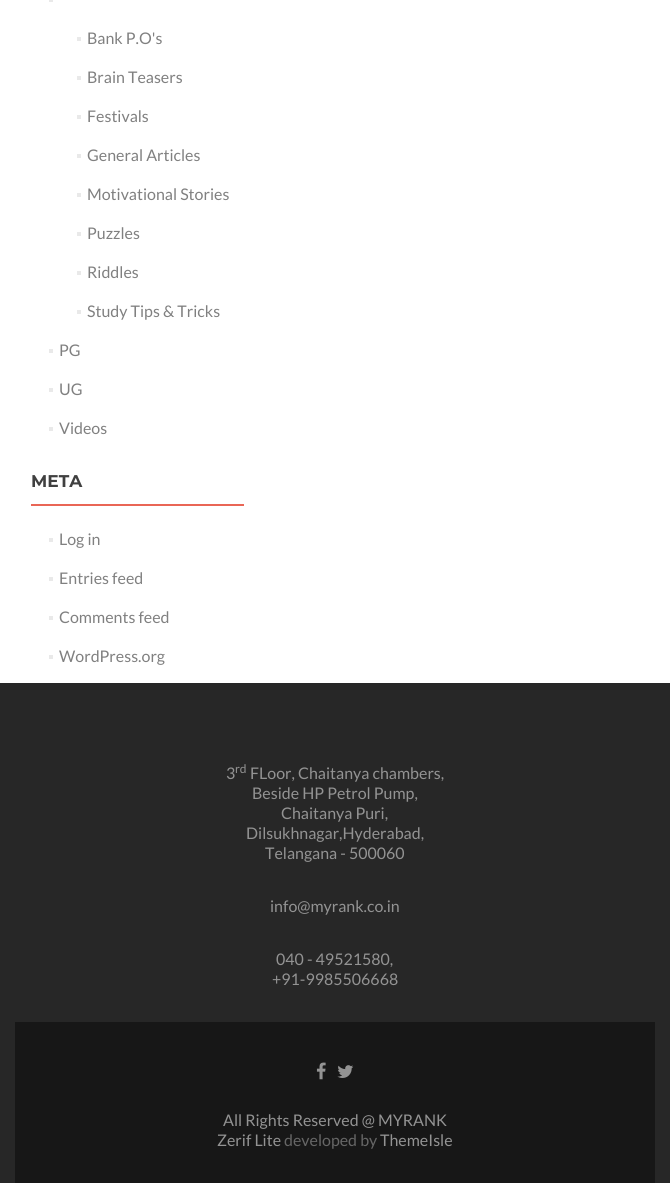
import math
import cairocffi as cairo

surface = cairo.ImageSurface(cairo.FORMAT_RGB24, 670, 1183)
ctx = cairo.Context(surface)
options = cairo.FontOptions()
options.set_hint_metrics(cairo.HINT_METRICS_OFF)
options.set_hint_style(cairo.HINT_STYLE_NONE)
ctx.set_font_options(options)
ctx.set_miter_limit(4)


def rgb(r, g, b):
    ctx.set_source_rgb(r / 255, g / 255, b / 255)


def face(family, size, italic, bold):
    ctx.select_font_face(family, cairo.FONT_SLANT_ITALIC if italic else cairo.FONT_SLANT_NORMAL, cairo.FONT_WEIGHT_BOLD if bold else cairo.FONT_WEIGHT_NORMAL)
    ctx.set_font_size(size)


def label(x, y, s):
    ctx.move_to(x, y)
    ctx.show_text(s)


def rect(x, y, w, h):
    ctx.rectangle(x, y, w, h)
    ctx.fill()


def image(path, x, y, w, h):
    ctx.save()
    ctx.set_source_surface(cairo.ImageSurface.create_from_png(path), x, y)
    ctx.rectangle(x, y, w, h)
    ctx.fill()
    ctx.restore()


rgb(255, 255, 255)
ctx.paint()
rgb(233, 233, 233)
rect(49, 0, 4, 2)
rect(77, 37, 4, 4)
face('Lato', 16, 0, 0)
rgb(128, 128, 128)
label(87, 44, 'Bank P.O\'s')
rgb(233, 233, 233)
rect(77, 76, 4, 4)
rgb(128, 128, 128)
label(87, 83, 'Brain Teasers')
rgb(233, 233, 233)
rect(77, 115, 4, 4)
rgb(128, 128, 128)
label(87, 122, 'Festivals')
rgb(233, 233, 233)
rect(77, 154, 4, 4)
rgb(128, 128, 128)
label(87, 161, 'General Articles')
rgb(233, 233, 233)
rect(77, 193, 4, 4)
rgb(128, 128, 128)
label(87, 200, 'Motivational Stories')
rgb(233, 233, 233)
rect(77, 232, 4, 4)
rgb(128, 128, 128)
label(87, 239, 'Puzzles')
rgb(233, 233, 233)
rect(77, 271, 4, 4)
rgb(128, 128, 128)
label(87, 278, 'Riddles')
rgb(233, 233, 233)
rect(77, 310, 4, 4)
rgb(128, 128, 128)
label(87, 317, 'Study Tips & Tricks')
rgb(233, 233, 233)
rect(49, 349, 4, 4)
rgb(128, 128, 128)
label(59, 356, 'PG')
rgb(233, 233, 233)
rect(49, 388, 4, 4)
rgb(128, 128, 128)
label(59, 395, 'UG')
rgb(233, 233, 233)
rect(49, 427, 4, 4)
rgb(128, 128, 128)
label(59, 434, 'Videos')
face('Montserrat', 17, 0, 1)
rgb(64, 64, 64)
label(31, 487, 'META')
rgb(233, 102, 86)
rect(31, 504, 213, 2)
rgb(233, 233, 233)
rect(49, 538, 4, 4)
face('Lato', 16, 0, 0)
rgb(128, 128, 128)
label(59, 545, 'Log in')
rgb(233, 233, 233)
rect(49, 577, 4, 4)
rgb(128, 128, 128)
label(59, 584, 'Entries feed')
rgb(233, 233, 233)
rect(49, 616, 4, 4)
rgb(128, 128, 128)
label(59, 623, 'Comments feed')
rgb(233, 233, 233)
rect(49, 655, 4, 4)
rgb(128, 128, 128)
label(59, 662, 'WordPress.org')
rgb(39, 39, 39)
rect(0, 683, 670, 500)
rgb(147, 147, 147)
label(226, 779, '3')
face('Lato', 12, 0, 0)
label(235, 773, 'rd')
face('Lato', 16, 0, 0)
label(250, 779, 'FLoor, Chaitanya chambers,')
label(252, 799, 'Beside HP Petrol Pump,')
label(281, 819, 'Chaitanya Puri,')
label(246, 839, 'Dilsukhnagar,Hyderabad,')
label(265, 859, 'Telangana - 500060')
label(270, 912, 'info@myrank.co.in')
label(276, 965, '040 - 49521580,')
label(272, 985, '+91-9985506668')
rgb(23, 23, 23)
rect(15, 1022, 640, 161)
image('image0.png', 316, 1062, 10, 18)
image('image1.png', 337, 1065, 17, 13)
rgb(147, 147, 147)
label(223, 1126, 'All Rights Reserved @ MYRANK')
label(217, 1146, 'Zerif Lite')
rgb(102, 102, 102)
label(284, 1146, 'developed by')
rgb(147, 147, 147)
label(380, 1146, 'ThemeIsle')
surface.write_to_png('render.png')
